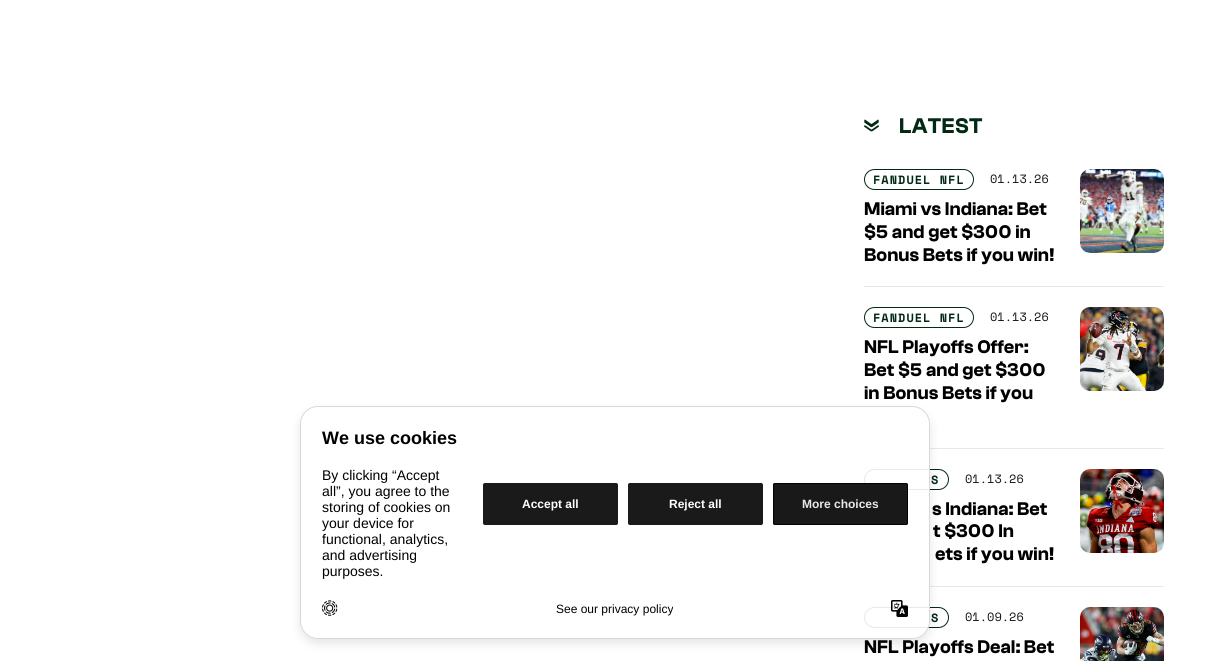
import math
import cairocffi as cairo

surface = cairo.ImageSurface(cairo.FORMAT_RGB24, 1230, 661)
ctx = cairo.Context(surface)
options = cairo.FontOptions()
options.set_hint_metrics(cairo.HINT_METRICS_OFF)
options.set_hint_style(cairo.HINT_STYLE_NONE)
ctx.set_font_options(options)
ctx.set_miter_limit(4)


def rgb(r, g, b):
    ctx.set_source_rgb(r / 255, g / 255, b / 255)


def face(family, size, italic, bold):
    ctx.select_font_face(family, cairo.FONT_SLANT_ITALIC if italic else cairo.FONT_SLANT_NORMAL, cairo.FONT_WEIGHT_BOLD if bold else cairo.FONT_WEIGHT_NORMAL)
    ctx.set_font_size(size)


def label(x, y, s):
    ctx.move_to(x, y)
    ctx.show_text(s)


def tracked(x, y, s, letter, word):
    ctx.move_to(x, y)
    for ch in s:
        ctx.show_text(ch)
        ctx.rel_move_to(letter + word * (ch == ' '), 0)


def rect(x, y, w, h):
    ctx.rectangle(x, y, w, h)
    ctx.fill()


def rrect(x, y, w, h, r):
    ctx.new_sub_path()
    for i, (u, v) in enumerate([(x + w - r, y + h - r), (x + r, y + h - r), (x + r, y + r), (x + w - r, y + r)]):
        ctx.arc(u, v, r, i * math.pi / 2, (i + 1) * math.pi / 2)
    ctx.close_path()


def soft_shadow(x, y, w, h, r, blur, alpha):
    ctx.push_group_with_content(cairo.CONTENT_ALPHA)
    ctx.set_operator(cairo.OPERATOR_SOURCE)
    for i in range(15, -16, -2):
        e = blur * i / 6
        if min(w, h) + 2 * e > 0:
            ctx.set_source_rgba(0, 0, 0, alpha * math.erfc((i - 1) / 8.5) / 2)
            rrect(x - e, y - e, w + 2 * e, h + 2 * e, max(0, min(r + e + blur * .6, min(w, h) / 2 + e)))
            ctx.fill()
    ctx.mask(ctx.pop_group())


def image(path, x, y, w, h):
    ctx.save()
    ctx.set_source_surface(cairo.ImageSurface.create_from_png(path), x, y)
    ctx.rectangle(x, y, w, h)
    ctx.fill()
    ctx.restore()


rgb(255, 255, 255)
ctx.paint()
rgb(232, 232, 232)
rect(864, 448, 300, 1)
rrect(864.5, 469.5, 84, 20, 10)
rgb(2, 41, 20)
ctx.set_line_width(1)
ctx.stroke()
rgb(232, 232, 232)
rect(864, 586, 300, 1)
rrect(864.5, 607.5, 84, 20, 10)
rgb(2, 41, 20)
ctx.stroke()
ctx.save()
ctx.set_fill_rule(cairo.FILL_RULE_EVEN_ODD)
ctx.new_path()
ctx.move_to(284, 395)
ctx.line_to(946, 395)
ctx.line_to(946, 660)
ctx.line_to(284, 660)
ctx.close_path()
ctx.move_to(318, 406)
ctx.line_to(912, 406)
ctx.curve_to(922, 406, 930, 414, 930, 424)
ctx.line_to(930, 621)
ctx.curve_to(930, 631, 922, 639, 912, 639)
ctx.line_to(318, 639)
ctx.curve_to(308, 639, 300, 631, 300, 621)
ctx.line_to(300, 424)
ctx.curve_to(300, 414, 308, 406, 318, 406)
ctx.close_path()
ctx.clip()
rgb(0, 0, 0)
soft_shadow(300, 411, 630, 233, 18, 5, 0.1)
ctx.restore()
ctx.set_source_rgba(1, 1, 1, 0.9)
rrect(300.5, 406.5, 629, 232, 17.5)
ctx.fill_preserve()
rgb(216, 216, 216)
ctx.stroke()
face('Liberation Sans', 18, 0, 1)
rgb(0, 0, 0)
label(322, 444, 'We use cookies')
face('Liberation Sans', 14, 0, 0)
label(322, 480, 'By clicking “Accept')
label(322, 496, 'all”, you agree to the')
label(322, 512, 'storing of cookies on')
label(322, 528, 'your device for')
label(322, 544, 'functional, analytics,')
label(322, 560, 'and advertising')
label(322, 576, 'purposes.')
rgb(26, 26, 26)
rrect(483.5, 483.5, 134, 41, 1.5)
ctx.fill_preserve()
ctx.stroke()
face('Liberation Sans', 12, 0, 1)
rgb(255, 255, 255)
label(522, 508, 'Accept all')
rgb(26, 26, 26)
rrect(628.5, 483.5, 134, 41, 1.5)
ctx.fill_preserve()
ctx.stroke()
rgb(255, 255, 255)
label(669, 508, 'Reject all')
ctx.set_source_rgba(0, 0, 0, 0.9)
rrect(773, 483, 135, 42, 2)
ctx.fill()
rrect(773.5, 483.5, 134, 41, 1.5)
ctx.stroke()
rgb(232, 232, 232)
label(802, 508, 'More choices')
image('image0.png', 322, 600, 16, 16)
face('Liberation Sans', 12, 0, 0)
rgb(0, 0, 0)
label(556, 613, 'See our privacy policy')
image('image1.png', 891, 600, 17, 17)
image('image2.png', 864, 119, 15, 13)
face('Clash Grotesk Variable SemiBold', 22, 1, 0)
rgb(2, 41, 20)
tracked(899, 133, 'LATEST', 0.5, 0)
rrect(864.5, 169.5, 109, 20, 10)
ctx.stroke()
face('Space Mono', 12, 0, 1)
tracked(873, 184, 'FANDUEL NFL', 1, 0)
face('Space Mono', 12, 0, 0)
rgb(20, 20, 20)
label(990, 183, '01.13.26')
face('Clash Grotesk Variable SemiBold', 19, 1, 0)
rgb(0, 0, 0)
label(864, 215, 'Miami vs Indiana: Bet')
label(864, 238, '$5 and get $300 in')
label(864, 261, 'Bonus Bets if you win!')
image('image3.png', 1080, 169, 84, 84)
rgb(232, 232, 232)
rect(864, 286, 300, 1)
rrect(864.5, 307.5, 109, 20, 10)
rgb(2, 41, 20)
ctx.stroke()
face('Space Mono', 12, 0, 1)
tracked(873, 322, 'FANDUEL NFL', 1, 0)
face('Space Mono', 12, 0, 0)
rgb(20, 20, 20)
label(990, 321, '01.13.26')
face('Clash Grotesk Variable SemiBold', 19, 1, 0)
rgb(0, 0, 0)
label(864, 353, 'NFL Playoffs Offer:')
label(864, 376, 'Bet $5 and get $300')
label(864, 399, 'in Bonus Bets if you')
image('image4.png', 1080, 307, 84, 84)
face('Space Mono', 12, 0, 1)
rgb(2, 41, 20)
tracked(931, 484, 'S', 1, 0)
face('Space Mono', 12, 0, 0)
rgb(20, 20, 20)
label(965, 483, '01.13.26')
face('Clash Grotesk Variable SemiBold', 19, 1, 0)
rgb(0, 0, 0)
label(932, 515, 's Indiana: Bet')
label(933, 537, 't $300 In')
label(935, 560, 'ets if you win!')
image('image5.png', 1080, 469, 84, 84)
face('Space Mono', 12, 0, 1)
rgb(2, 41, 20)
tracked(931, 622, 'S', 1, 0)
face('Space Mono', 12, 0, 0)
rgb(20, 20, 20)
label(965, 621, '01.09.26')
face('Clash Grotesk Variable SemiBold', 19, 1, 0)
rgb(0, 0, 0)
label(864, 653, 'NFL Playoffs Deal: Bet')
image('image6.png', 1080, 607, 84, 54)
surface.write_to_png('render.png')
